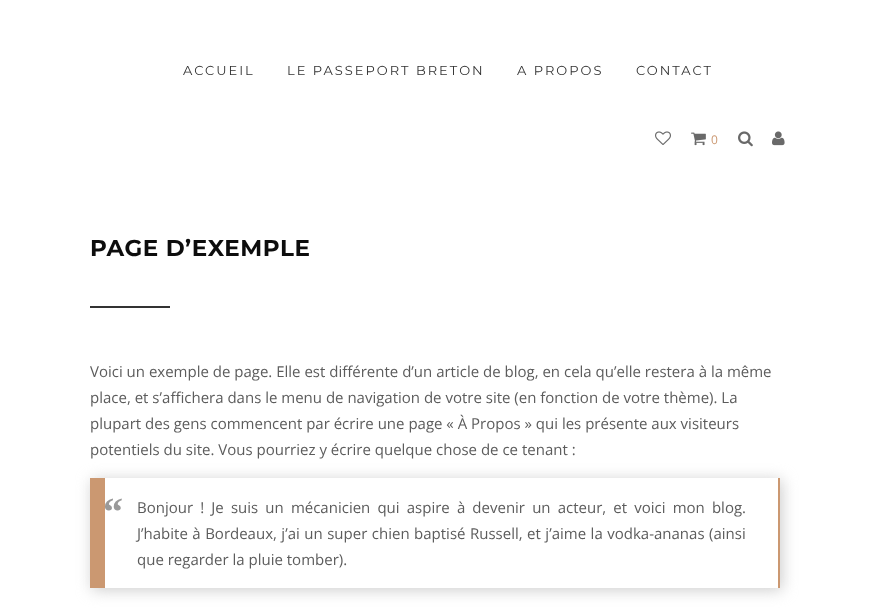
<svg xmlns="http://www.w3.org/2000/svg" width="870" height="610">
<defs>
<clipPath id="clip1"><path d="M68 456h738v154h-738zm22 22h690v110h-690z" clip-rule="evenodd"/></clipPath>
</defs>
<rect width="100%" height="100%" fill="#fff"/>
<text x="183" y="75" style="font-family:Montserrat;font-size:13px;letter-spacing:2px;fill:#333">ACCUEIL</text>
<text x="287" y="75" style="font-family:Montserrat;font-size:13px;letter-spacing:2px;fill:#333">LE PASSEPORT BRETON</text>
<text x="517" y="75" style="font-family:Montserrat;font-size:13px;letter-spacing:2px;fill:#333">A PROPOS</text>
<text x="636" y="75" style="font-family:Montserrat;font-size:13px;letter-spacing:2px;fill:#333">CONTACT</text>
<image x="655" y="131" width="16" height="14" href="media/1.png"/>
<image x="691" y="132" width="15" height="14" href="media/2.png"/>
<text x="711" y="144" style="font-family:Open Sans;font-size:12px;fill:#cb9871">0</text>
<image x="738" y="131" width="15" height="16" href="media/3.png"/>
<image x="772" y="131" width="13" height="15" href="media/4.png"/>
<text x="90" y="256" style="font-family:Montserrat;font-size:23px;font-weight:bold;letter-spacing:0.6px;fill:#0d0d0d">PAGE D’EXEMPLE</text>
<rect x="90" y="306" width="80" height="2" fill="#333"/>
<text x="90" y="377" style="font-family:Open Sans;font-size:15px;fill:#5c5c5c">Voici un exemple de page. Elle est différente d’un article de blog, en cela qu’elle restera à la même</text>
<text x="90" y="403" style="font-family:Open Sans;font-size:15px;fill:#5c5c5c">place, et s’affichera dans le menu de navigation de votre site (en fonction de votre thème). La</text>
<text x="90" y="429" style="font-family:Open Sans;font-size:15px;fill:#5c5c5c">plupart des gens commencent par écrire une page « À Propos » qui les présente aux visiteurs</text>
<text x="90" y="455" style="font-family:Open Sans;font-size:15px;fill:#5c5c5c">potentiels du site. Vous pourriez y écrire quelque chose de ce tenant :</text>
<g clip-path="url(#clip1)">
<rect x="92" y="480" width="690" height="110" fill="#ccc" filter="blur(7.5px)"/>
</g>
<rect x="778" y="478" width="2" height="110" fill="#cb9871"/>
<rect x="90" y="478" width="15" height="110" fill="#cb9871"/>
<text x="103" y="525" style="font-family:Liberation Serif;font-size:40px;font-weight:bold;fill:#999">“</text>
<text x="137" y="513" word-spacing="3.25" style="font-family:Open Sans;font-size:15px;fill:#5c5c5c">Bonjour ! Je suis un mécanicien qui aspire à devenir un acteur, et voici mon blog.</text>
<text x="137" y="539" word-spacing="0.6" style="font-family:Open Sans;font-size:15px;fill:#5c5c5c">J’habite à Bordeaux, j’ai un super chien baptisé Russell, et j’aime la vodka-ananas (ainsi</text>
<text x="137" y="565" style="font-family:Open Sans;font-size:15px;fill:#5c5c5c">que regarder la pluie tomber).</text>
</svg>
